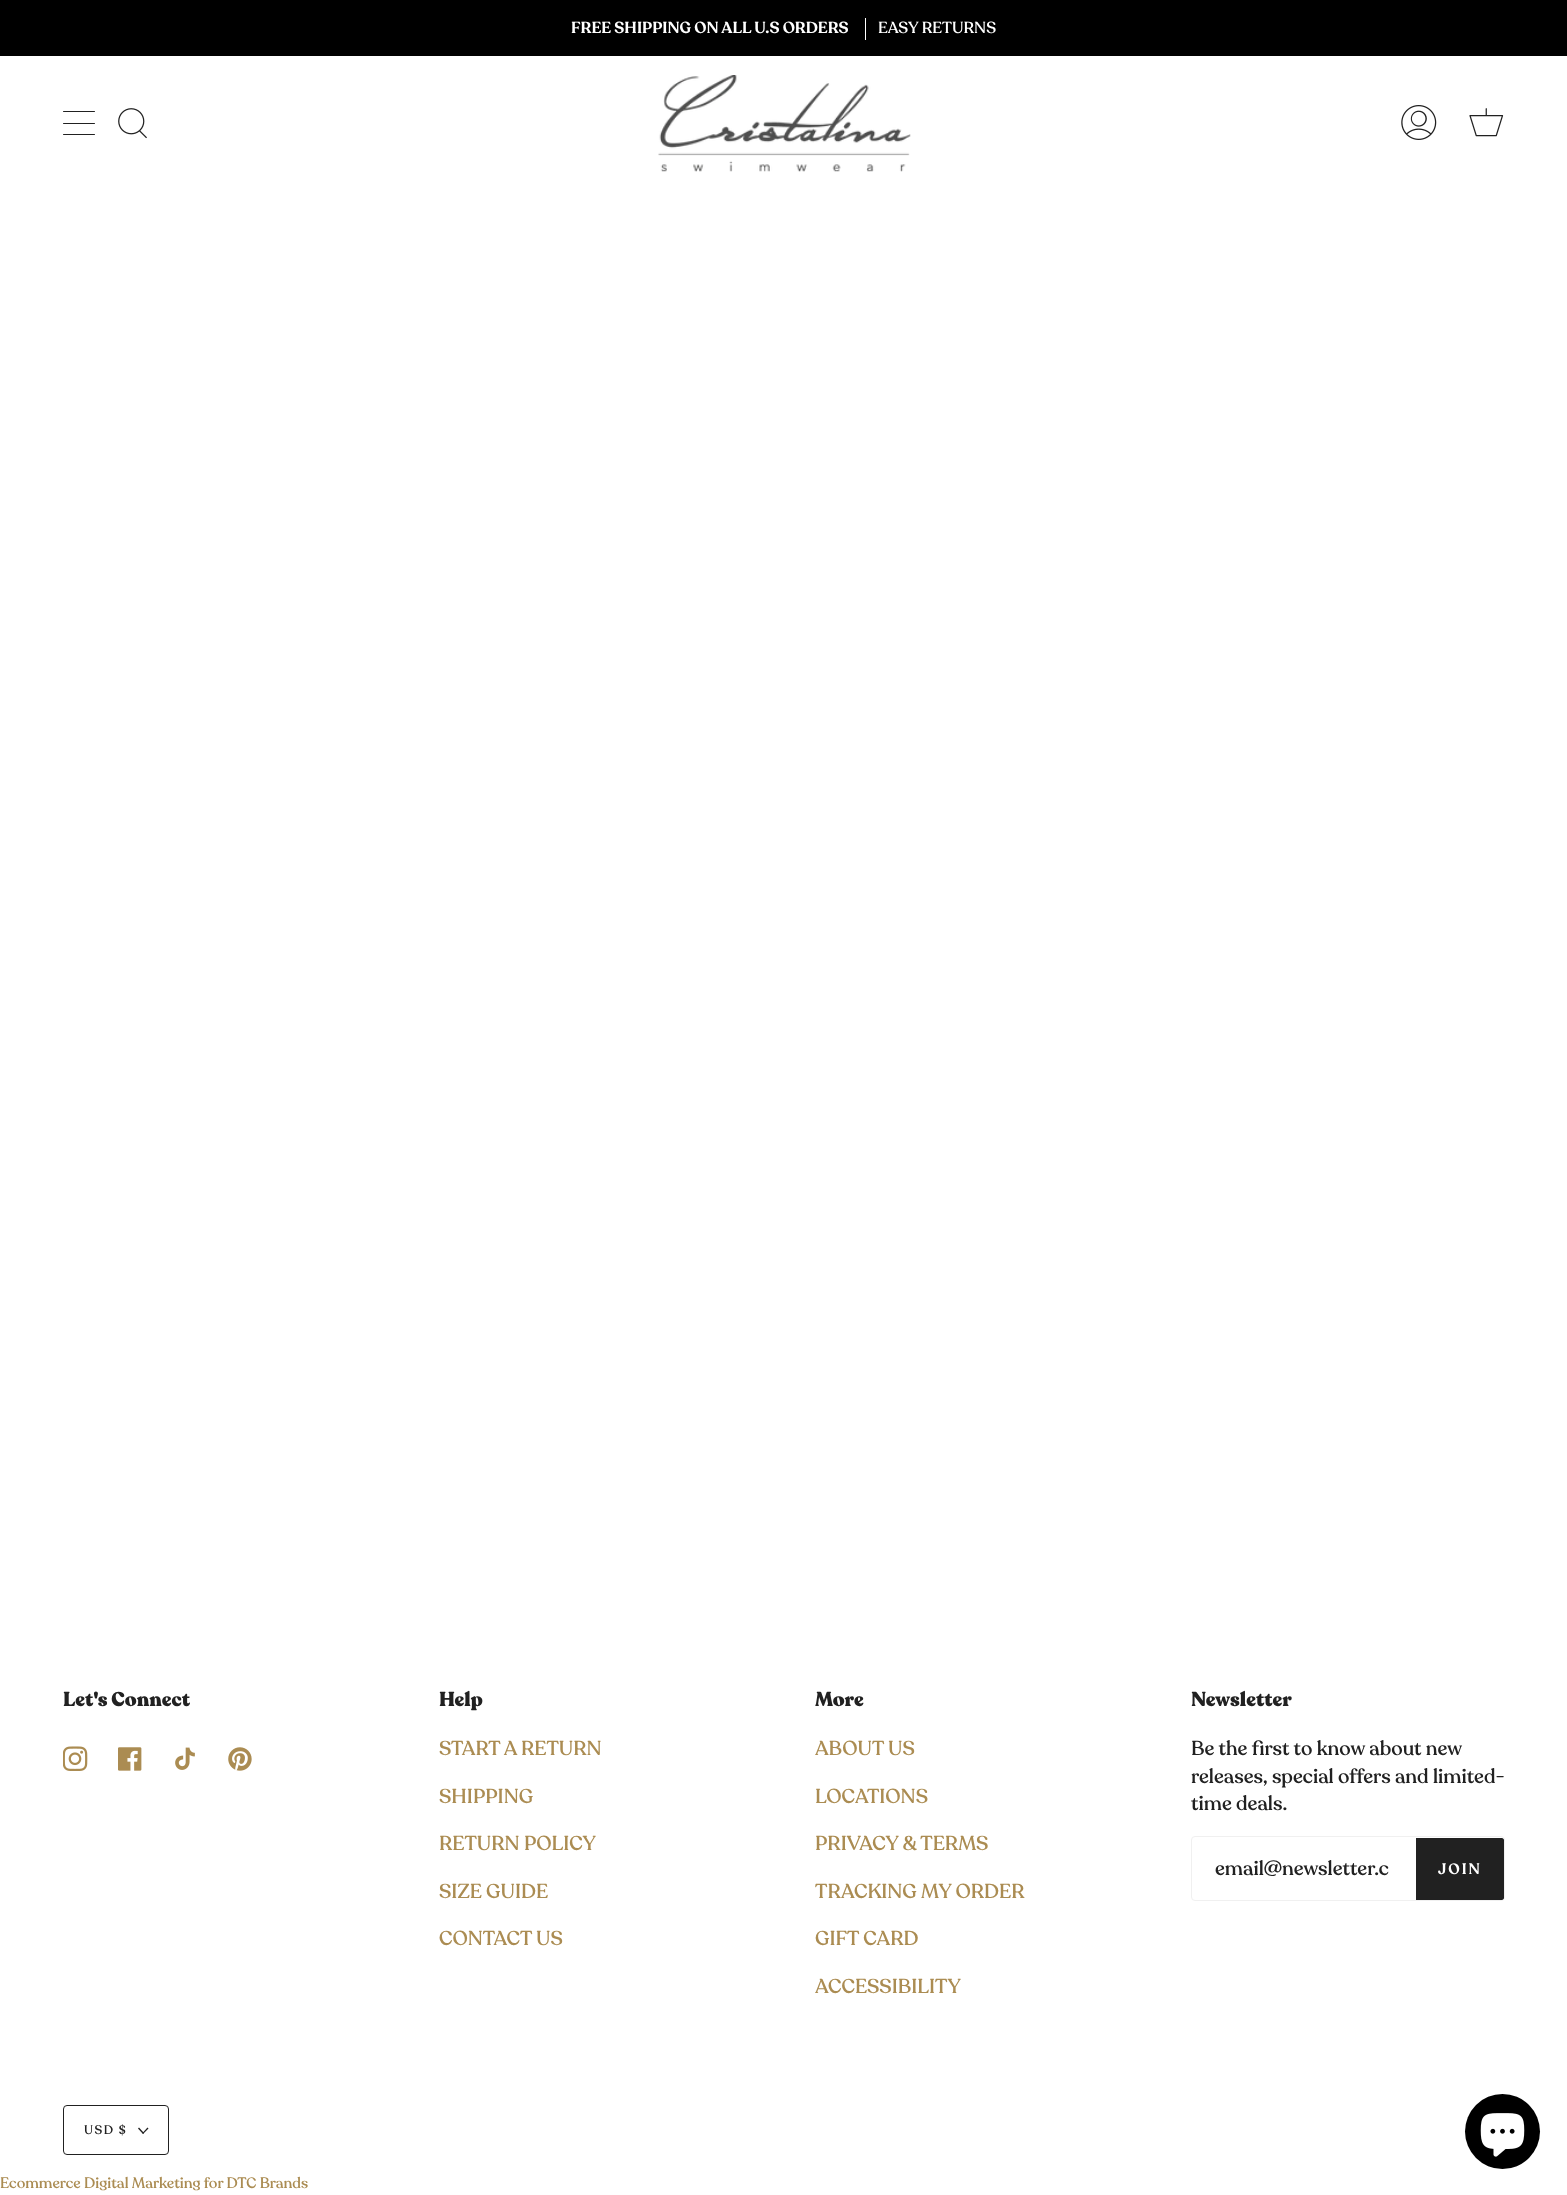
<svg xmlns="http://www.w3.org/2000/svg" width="1567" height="2195">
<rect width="100%" height="100%" fill="#fff"/>
<rect width="1567" height="56" fill="#000"/>
<text x="571" y="33" style="font-family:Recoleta;font-size:16px;font-weight:600;fill:#fff">FREE SHIPPING ON ALL U.S ORDERS</text>
<rect x="865" y="18" width="1" height="22" fill="#fff"/>
<text x="878" y="33" style="font-family:Recoleta;font-size:16px;font-weight:500;fill:#fff">EASY RETURNS</text>
<rect x="63" y="111" width="32" height="1" rx="0.5" fill="#212121"/>
<rect x="63" y="123" width="32" height="1" rx="0.5" fill="#212121"/>
<rect x="63" y="134" width="32" height="1" rx="0.5" fill="#212121"/>
<image x="118" y="108" width="29" height="31" href="media/1.png"/>
<image x="658" y="75" width="253" height="97" href="media/2.png"/>
<image x="1401" y="105" width="36" height="35" href="media/3.png"/>
<image x="1469" y="108" width="35" height="29" href="media/4.png"/>
<text x="63" y="1706" style="font-family:Recoleta;font-size:20px;font-weight:900;fill:#212121">Let's Connect</text>
<image x="63" y="1746" width="25" height="25" href="media/5.png"/>
<image x="118" y="1747" width="24" height="24" href="media/6.png"/>
<image x="175" y="1747" width="20" height="23" href="media/7.png"/>
<image x="228" y="1747" width="24" height="24" href="media/8.png"/>
<text x="439" y="1706" style="font-family:Recoleta;font-size:20px;font-weight:900;fill:#212121">Help</text>
<text x="439" y="1755" style="font-family:Recoleta;font-size:20px;font-weight:500;fill:#ab8c52">START A RETURN</text>
<text x="439" y="1803" style="font-family:Recoleta;font-size:20px;font-weight:500;fill:#ab8c52">SHIPPING</text>
<text x="439" y="1850" style="font-family:Recoleta;font-size:20px;font-weight:500;fill:#ab8c52">RETURN POLICY</text>
<text x="439" y="1898" style="font-family:Recoleta;font-size:20px;font-weight:500;fill:#ab8c52">SIZE GUIDE</text>
<text x="439" y="1945" style="font-family:Recoleta;font-size:20px;font-weight:500;fill:#ab8c52">CONTACT US</text>
<text x="815" y="1706" style="font-family:Recoleta;font-size:20px;font-weight:900;fill:#212121">More</text>
<text x="815" y="1755" style="font-family:Recoleta;font-size:20px;font-weight:500;fill:#ab8c52">ABOUT US</text>
<text x="815" y="1803" style="font-family:Recoleta;font-size:20px;font-weight:500;fill:#ab8c52">LOCATIONS</text>
<text x="815" y="1850" style="font-family:Recoleta;font-size:20px;font-weight:500;fill:#ab8c52">PRIVACY &amp; TERMS</text>
<text x="815" y="1898" style="font-family:Recoleta;font-size:20px;font-weight:500;fill:#ab8c52">TRACKING MY ORDER</text>
<text x="815" y="1945" style="font-family:Recoleta;font-size:20px;font-weight:500;fill:#ab8c52">GIFT CARD</text>
<text x="815" y="1993" style="font-family:Recoleta;font-size:20px;font-weight:500;fill:#ab8c52">ACCESSIBILITY</text>
<text x="1191" y="1706" style="font-family:Recoleta;font-size:20px;font-weight:900;fill:#212121">Newsletter</text>
<text x="1191" y="1755" style="font-family:Recoleta;font-size:20px;font-weight:500;fill:#212121">Be the first to know about new</text>
<text x="1191" y="1783" style="font-family:Recoleta;font-size:20px;font-weight:500;fill:#212121">releases, special offers and limited-</text>
<text x="1191" y="1810" style="font-family:Recoleta;font-size:20px;font-weight:500;fill:#212121">time deals.</text>
<rect x="1191.5" y="1836.5" width="313" height="64" rx="3.5" fill="none" stroke="#f0f0f0"/>
<text x="1215" y="1875" style="font-family:Recoleta;font-size:20px;font-weight:500;fill:#212121">email@newsletter.c</text>
<path d="M1416 1838h85.5c1.5 0 2.5 1 2.5 2.5v57c0 1.5-1 2.5-2.5 2.5h-85.5z" fill="#212121"/>
<rect x="1416" y="1838" width="88" height="62" rx="4" fill="#212121"/>
<text x="1438" y="1874" style="font-family:Recoleta;font-size:15px;font-weight:600;letter-spacing:2px;fill:#fff">JOIN</text>
<rect x="63.5" y="2105.5" width="105" height="49" rx="3.5" fill="none" stroke="#212121"/>
<text x="84" y="2134" style="font-family:Recoleta;font-size:12.5px;font-weight:500;letter-spacing:1.5px;fill:#212121">USD $</text>
<path d="M142.5 2133l5-5.5l1 1l-5.5 5.5z" fill="#212121"/>
<path d="M138 2128.5l1-1l5 5.5l-1 1z" fill="#212121"/>
<text x="0" y="2188" style="font-family:Recoleta;font-size:15px;font-weight:500;fill:#ab8c52">Ecommerce Digital Marketing for DTC Brands</text>
<circle cx="1502.5" cy="2131.5" r="37.5" fill="#000"/>
<image x="1480" y="2113" width="45" height="44" href="media/9.png"/>
</svg>
